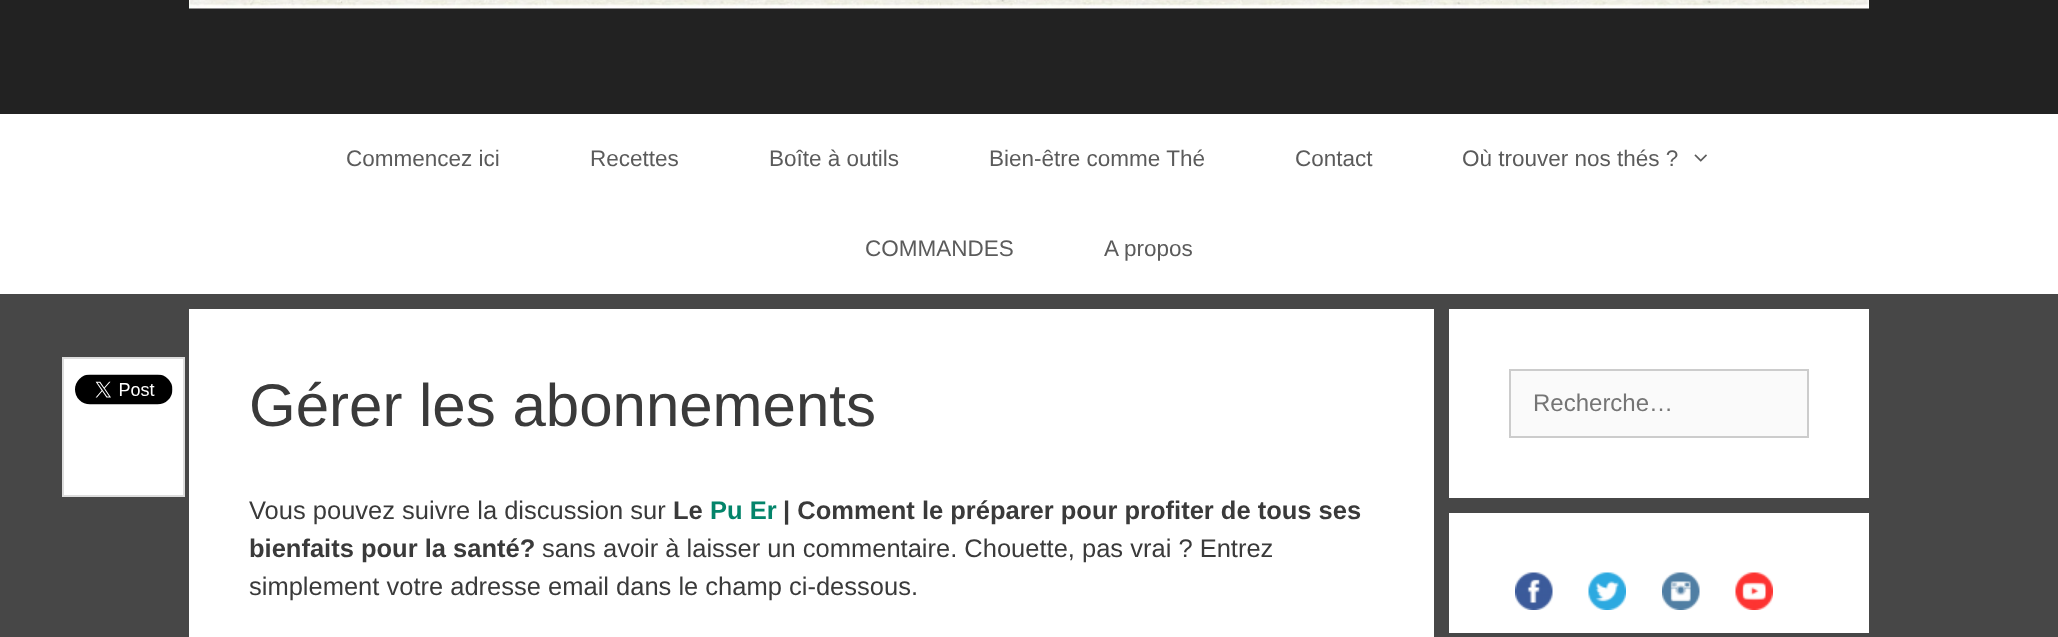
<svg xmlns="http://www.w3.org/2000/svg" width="2058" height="637">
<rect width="100%" height="100%" fill="#474747"/>
<rect width="2058" height="114" fill="#222"/>
<image x="189" y="0" width="1680" height="9" href="media/1.png"/>
<rect y="114" width="2058" height="180" fill="#fff"/>
<text x="346" y="166" style="font-family:Liberation Sans;font-size:22.5px;fill:#5b5b5b">Commencez ici</text>
<text x="590" y="166" style="font-family:Liberation Sans;font-size:22.5px;fill:#5b5b5b">Recettes</text>
<text x="769" y="166" style="font-family:Liberation Sans;font-size:22.5px;fill:#5b5b5b">Boîte à outils</text>
<text x="989" y="166" style="font-family:Liberation Sans;font-size:22.5px;fill:#5b5b5b">Bien-être comme Thé</text>
<text x="1295" y="166" style="font-family:Liberation Sans;font-size:22.5px;fill:#5b5b5b">Contact</text>
<text x="1462" y="166" style="font-family:Liberation Sans;font-size:22.5px;fill:#5b5b5b">Où trouver nos thés ?</text>
<image x="1694" y="154" width="13" height="8" href="media/2.png"/>
<text x="865" y="256" style="font-family:Liberation Sans;font-size:22.5px;fill:#5b5b5b">COMMANDES</text>
<text x="1104" y="256" style="font-family:Liberation Sans;font-size:22.5px;fill:#5b5b5b">A propos</text>
<rect x="63" y="358" width="121" height="138" fill="#fff" stroke="#ddd" stroke-width="2"/>
<image x="75" y="374" width="98" height="31" href="media/3.png"/>
<rect x="189" y="309" width="1245" height="328" fill="#fff"/>
<text x="249" y="426" style="font-family:Liberation Sans;font-size:60px;fill:#3a3a3a">Gérer les abonnements</text>
<text x="249" y="519" style="font-family:Liberation Sans;font-size:25.5px;fill:#3a3a3a">Vous pouvez suivre la discussion sur</text>
<text x="673" y="519" style="font-family:Liberation Sans;font-size:25.5px;font-weight:bold;fill:#3a3a3a">Le</text>
<text x="710" y="519" style="font-family:Liberation Sans;font-size:25.5px;font-weight:bold;fill:#03846a">Pu Er</text>
<text x="783" y="519" style="font-family:Liberation Sans;font-size:25.5px;font-weight:bold;fill:#3a3a3a">| Comment le préparer pour profiter de tous ses</text>
<text x="249" y="557" style="font-family:Liberation Sans;font-size:25.5px;font-weight:bold;fill:#3a3a3a">bienfaits pour la santé?</text>
<text x="542" y="557" style="font-family:Liberation Sans;font-size:25.5px;fill:#3a3a3a">sans avoir à laisser un commentaire. Chouette, pas vrai ? Entrez</text>
<text x="249" y="595" style="font-family:Liberation Sans;font-size:25.5px;fill:#3a3a3a">simplement votre adresse email dans le champ ci-dessous.</text>
<rect x="1449" y="309" width="420" height="189" fill="#fff"/>
<rect x="1510" y="370" width="298" height="67" fill="#fafafa" stroke="#ccc" stroke-width="2"/>
<text x="1533" y="411" style="font-family:Liberation Sans;font-size:24px;fill:#757575">Recherche…</text>
<rect x="1449" y="513" width="420" height="120" fill="#fff"/>
<image x="1515" y="572" width="38" height="38" href="media/4.png"/>
<image x="1588" y="572" width="38" height="38" href="media/5.png"/>
<image x="1662" y="572" width="38" height="38" href="media/6.png"/>
<image x="1735" y="572" width="38" height="38" href="media/7.png"/>
</svg>
